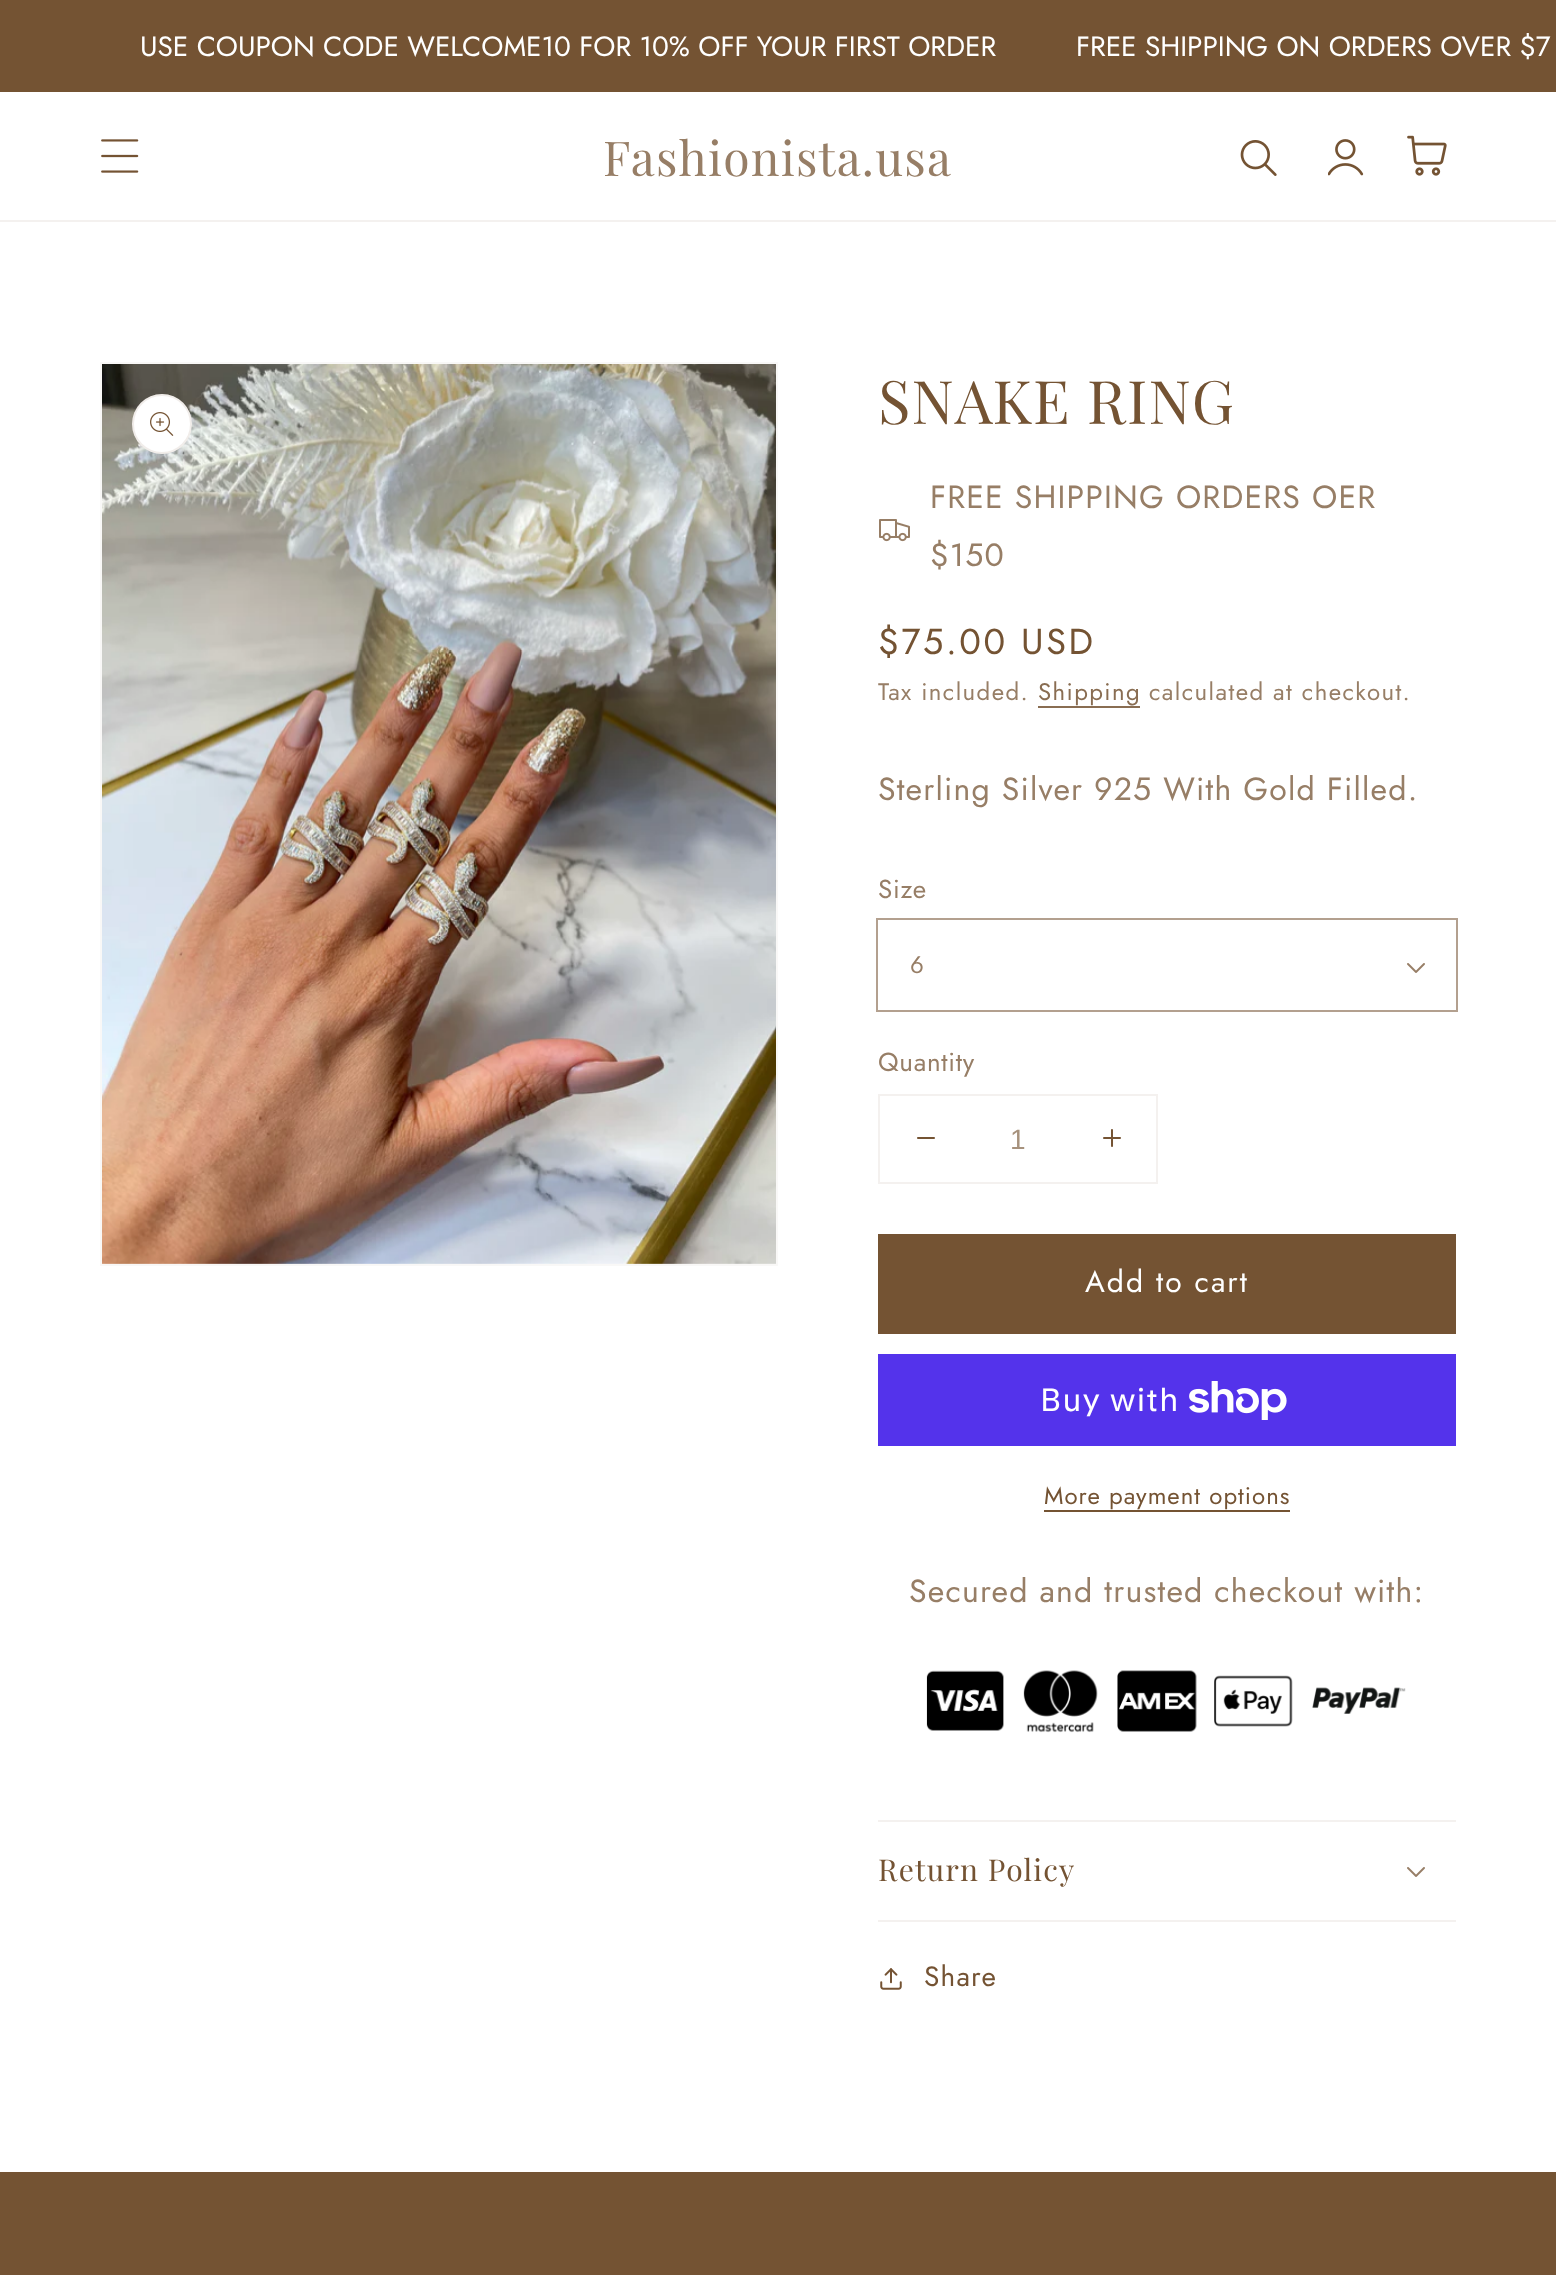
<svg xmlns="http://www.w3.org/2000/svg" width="1556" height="2275">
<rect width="100%" height="100%" fill="#fff"/>
<rect width="1556" height="92" fill="#745333"/>
<text x="140" y="56" style="font-family:Jost;font-size:28px;fill:#fff">USE COUPON CODE WELCOME10 FOR 10% OFF YOUR FIRST ORDER</text>
<text x="1076" y="56" style="font-family:Jost;font-size:28px;fill:#fff">FREE SHIPPING ON ORDERS OVER $7</text>
<rect y="220" width="1556" height="2" fill="#f4f1ef"/>
<image x="101" y="139" width="38" height="34" href="media/1.png"/>
<text x="603" y="176" style="font-family:Playfair Display;font-size:48px;letter-spacing:1.2px;fill:#977e66">Fashionista.usa</text>
<image x="1240" y="140" width="37" height="36" href="media/2.png"/>
<image x="1328" y="139" width="36" height="37" href="media/3.png"/>
<image x="1407" y="135" width="40" height="41" href="media/4.png"/>
<rect x="101" y="363" width="676" height="902" fill="none" stroke="#f9f8f7" stroke-width="2"/>
<image x="102" y="364" width="674" height="900" href="media/5.png"/>
<circle cx="162" cy="424" r="30" fill="#fff"/>
<circle cx="162" cy="424" r="29" fill="none" stroke="#7453331a" stroke-width="2"/>
<image x="150" y="412" width="24" height="24" href="media/6.png"/>
<text x="878" y="424" style="font-family:Playfair Display;font-size:60px;letter-spacing:1.2px;fill:#745333">SNAKE RING</text>
<image x="879" y="519" width="31" height="23" href="media/7.png"/>
<text x="930" y="508" style="font-family:Jost;font-size:32px;letter-spacing:1.2px;fill:#977e66">FREE SHIPPING ORDERS OER</text>
<text x="930" y="566" style="font-family:Jost;font-size:32px;letter-spacing:1.2px;fill:#977e66">$150</text>
<text x="878" y="654" style="font-family:Jost;font-size:36px;letter-spacing:2.6px;fill:#745333">$75.00 USD</text>
<text x="878" y="700" style="font-family:Jost;font-size:24px;letter-spacing:1.4px;fill:#977e66">Tax included.</text>
<text x="1038" y="700" style="font-family:Jost;font-size:24px;letter-spacing:1.4px;fill:#896d52">Shipping</text>
<rect x="1038" y="706" width="102" height="2" fill="#896d52"/>
<text x="1149" y="700" style="font-family:Jost;font-size:24px;letter-spacing:1.4px;fill:#977e66">calculated at checkout.</text>
<text x="878" y="800" style="font-family:Jost;font-size:32px;letter-spacing:1.2px;fill:#977e66">Sterling Silver 925 With Gold Filled.</text>
<text x="878" y="898" style="font-family:Jost;font-size:26px;letter-spacing:0.75px;fill:#977e66">Size</text>
<rect x="877" y="919" width="580" height="92" fill="none" stroke="#b3a08f" stroke-width="2"/>
<text x="910" y="973" style="font-family:Jost;font-size:24px;letter-spacing:0.75px;fill:#977e66">6</text>
<image x="1407" y="963" width="18" height="10" href="media/8.png"/>
<text x="878" y="1071" style="font-family:Jost;font-size:26px;letter-spacing:0.75px;fill:#977e66">Quantity</text>
<rect x="879" y="1095" width="278" height="88" fill="none" stroke="#f4f1ef" stroke-width="2"/>
<image x="917" y="1137" width="18" height="2" href="media/9.png"/>
<text x="1010" y="1149" style="font-family:Liberation Sans;font-size:28px;fill:#a7927d">1</text>
<image x="1103" y="1129" width="18" height="18" href="media/10.png"/>
<rect x="878" y="1234" width="578" height="100" fill="#745333"/>
<text x="1085" y="1292" style="font-family:Jost;font-size:30px;letter-spacing:2px;fill:#fff">Add to cart</text>
<rect x="878" y="1354" width="578" height="92" fill="#5433eb"/>
<text x="1040" y="1411" style="font-family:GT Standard;font-size:32px;letter-spacing:1.2px;fill:#fff">Buy with</text>
<image x="1189" y="1381" width="98" height="39" href="media/11.png"/>
<text x="1044" y="1504" style="font-family:Jost;font-size:24px;letter-spacing:1px;fill:#745333">More payment options</text>
<rect x="1044" y="1510" width="246" height="2" fill="#745333"/>
<text x="909" y="1602" style="font-family:Jost;font-size:32px;letter-spacing:1.2px;fill:#977e66">Secured and trusted checkout with:</text>
<image x="926" y="1670" width="480" height="63" href="media/12.png"/>
<rect x="878" y="1820" width="578" height="2" fill="#f4f1ef"/>
<rect x="878" y="1920" width="578" height="2" fill="#f4f1ef"/>
<text x="878" y="1881" style="font-family:Playfair Display;font-size:30px;letter-spacing:1.2px;fill:#745333">Return Policy</text>
<image x="1407" y="1867" width="18" height="10" href="media/8.png"/>
<image x="880" y="1968" width="22" height="22" href="media/13.png"/>
<text x="924" y="1986" style="font-family:Jost;font-size:28px;letter-spacing:1.2px;fill:#745333">Share</text>
<rect y="2172" width="1556" height="103" fill="#745333"/>
</svg>
